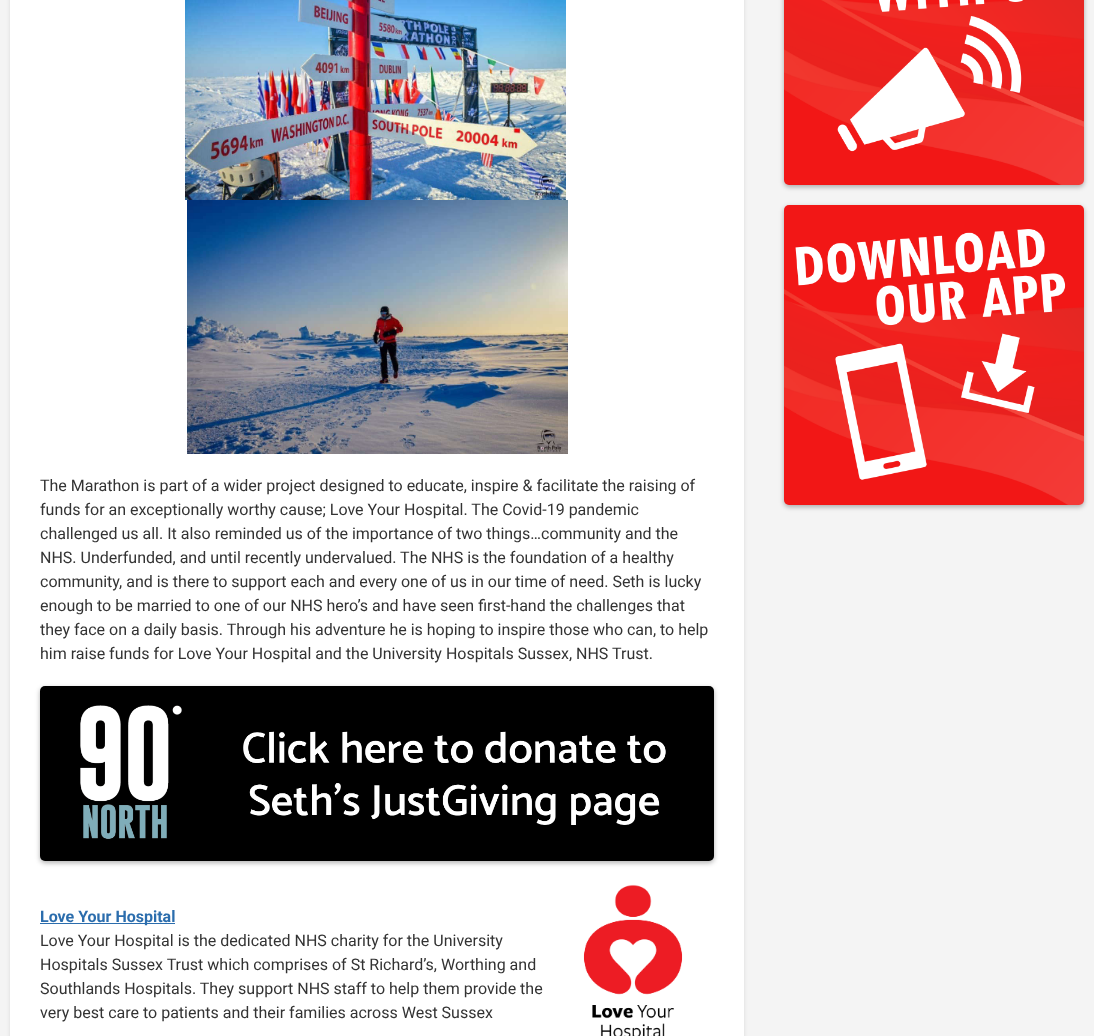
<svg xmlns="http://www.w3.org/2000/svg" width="1094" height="1036">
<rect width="100%" height="100%" fill="#f4f4f4"/>
<rect x="784" y="-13" width="300" height="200" rx="5" fill="#0000004d" filter="blur(2.5px)"/>
<image x="784" y="0" width="300" height="185" href="media/1.png"/>
<rect x="784" y="207" width="300" height="300" rx="5" fill="#0000004d" filter="blur(2.5px)"/>
<image x="784" y="205" width="300" height="300" href="media/2.png"/>
<rect x="10" y="-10" width="734" height="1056" rx="4" fill="#0000001a" filter="blur(2px)"/>
<rect x="10" width="734" height="1036" fill="#fff"/>
<image x="185" y="0" width="381" height="200" href="media/3.png"/>
<image x="187" y="200" width="381" height="254" href="media/4.png"/>
<text x="40" y="491" style="font-family:Roboto;font-size:16px;fill:#333">The Marathon is part of a wider project designed to educate, inspire &amp; facilitate the raising of</text>
<text x="40" y="515" style="font-family:Roboto;font-size:16px;fill:#333">funds for an exceptionally worthy cause; Love Your Hospital. The Covid-19 pandemic</text>
<text x="40" y="539" style="font-family:Roboto;font-size:16px;fill:#333">challenged us all. It also reminded us of the importance of two things…community and the</text>
<text x="40" y="563" style="font-family:Roboto;font-size:16px;fill:#333">NHS. Underfunded, and until recently undervalued. The NHS is the foundation of a healthy</text>
<text x="40" y="587" style="font-family:Roboto;font-size:16px;fill:#333">community, and is there to support each and every one of us in our time of need. Seth is lucky</text>
<text x="40" y="611" style="font-family:Roboto;font-size:16px;fill:#333">enough to be married to one of our NHS hero’s and have seen first-hand the challenges that</text>
<text x="40" y="635" style="font-family:Roboto;font-size:16px;fill:#333">they face on a daily basis. Through his adventure he is hoping to inspire those who can, to help</text>
<text x="40" y="659" style="font-family:Roboto;font-size:16px;fill:#333">him raise funds for Love Your Hospital and the University Hospitals Sussex, NHS Trust.</text>
<rect x="40" y="688" width="674" height="175" rx="5" fill="#0000004d" filter="blur(2.5px)"/>
<image x="40" y="686" width="674" height="175" href="media/5.png"/>
<rect x="40" y="923" width="135" height="1" fill="#2b6dad"/>
<text x="40" y="922" style="font-family:Roboto;font-size:16px;font-weight:bold;fill:#2b6dad">Love Your Hospital</text>
<image x="583" y="884" width="100" height="152" href="media/6.png"/>
<text x="40" y="946" style="font-family:Roboto;font-size:16px;fill:#333">Love Your Hospital is the dedicated NHS charity for the University</text>
<text x="40" y="970" style="font-family:Roboto;font-size:16px;fill:#333">Hospitals Sussex Trust which comprises of St Richard’s, Worthing and</text>
<text x="40" y="994" style="font-family:Roboto;font-size:16px;fill:#333">Southlands Hospitals. They support NHS staff to help them provide the</text>
<text x="40" y="1018" style="font-family:Roboto;font-size:16px;fill:#333">very best care to patients and their families across West Sussex</text>
</svg>
